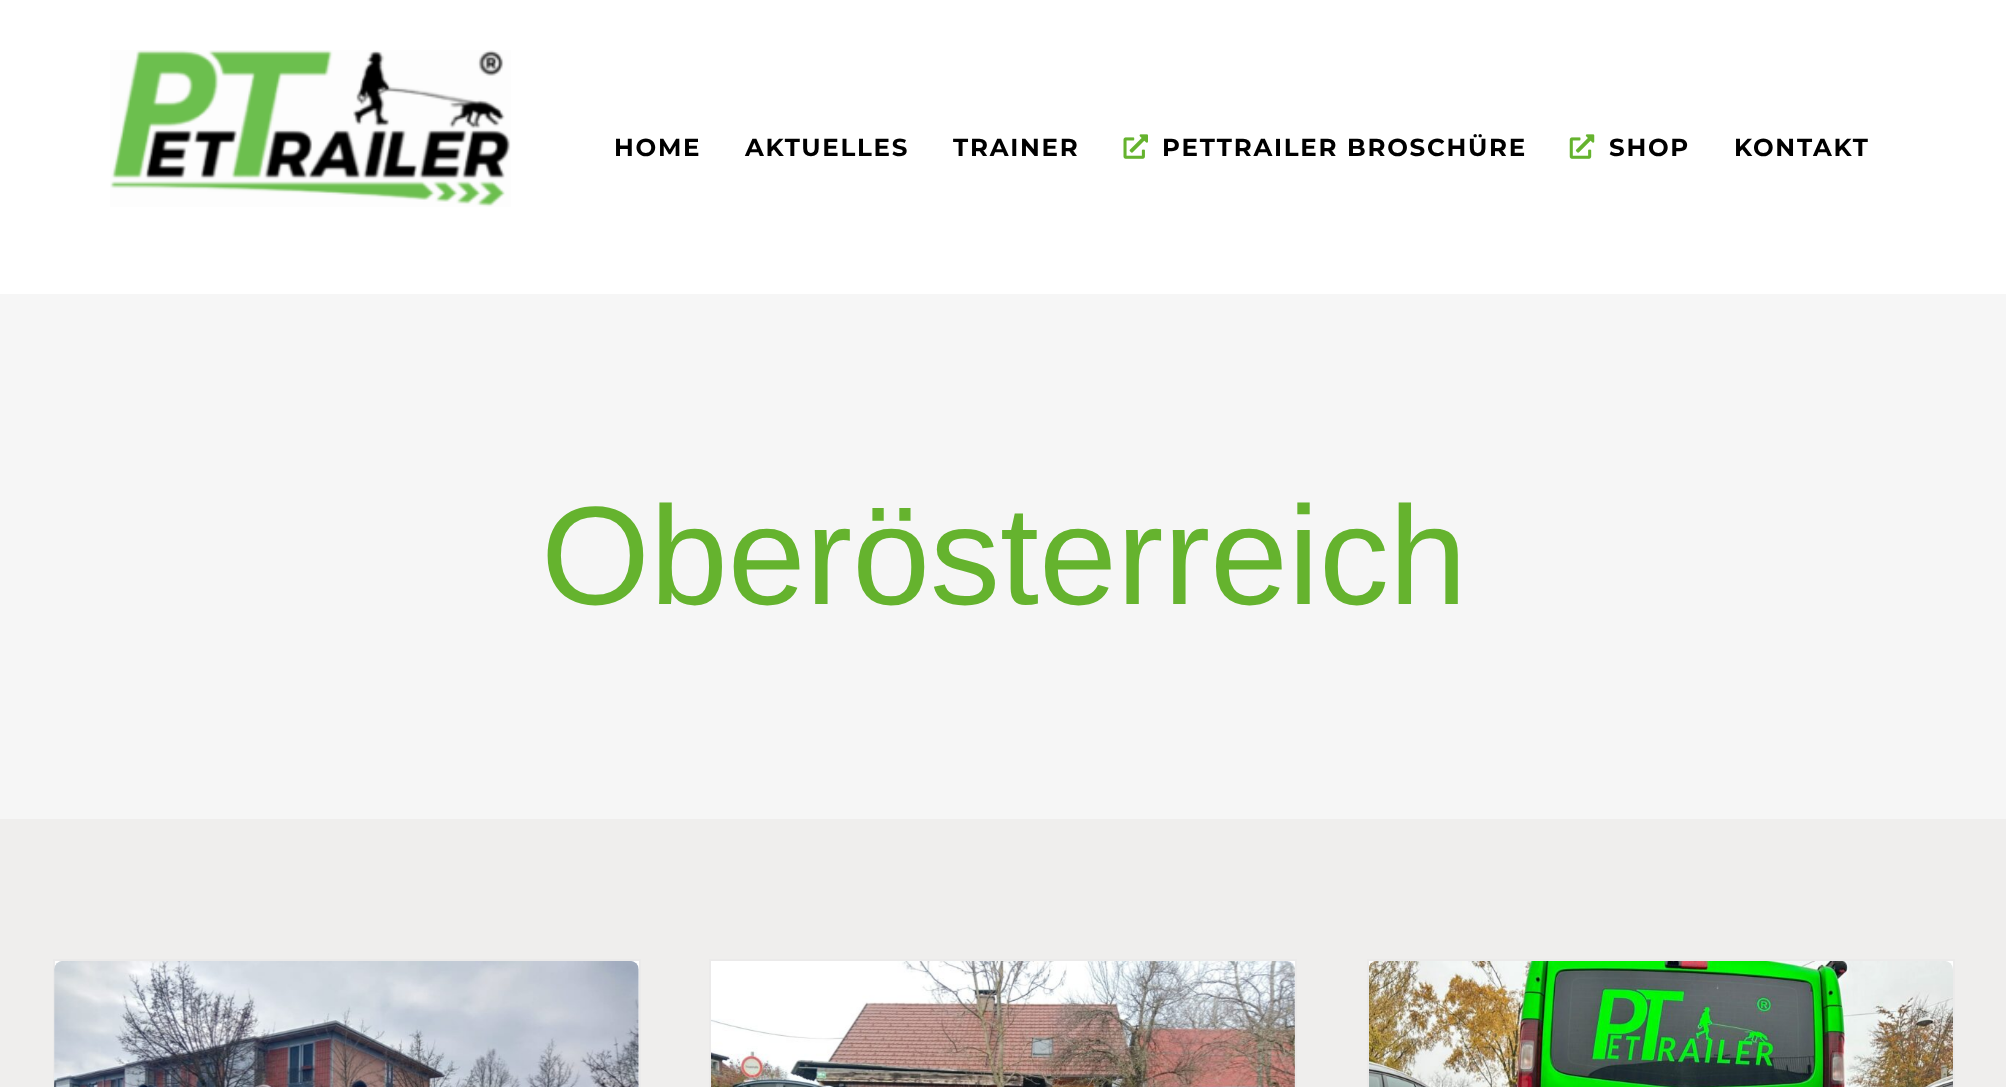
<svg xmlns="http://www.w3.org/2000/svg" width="2006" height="1087">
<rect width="100%" height="100%" fill="#efeeed"/>
<rect width="2006" height="294" fill="#fff"/>
<image x="110" y="50" width="401" height="157" href="media/1.png"/>
<text x="614" y="156" style="font-family:Montserrat;font-size:24.5px;font-weight:bold;letter-spacing:1.75px;fill:#000">HOME</text>
<text x="745" y="156" style="font-family:Montserrat;font-size:24.5px;font-weight:bold;letter-spacing:1.75px;fill:#000">AKTUELLES</text>
<text x="953" y="156" style="font-family:Montserrat;font-size:24.5px;font-weight:bold;letter-spacing:1.75px;fill:#000">TRAINER</text>
<image x="1123" y="134" width="25" height="25" href="media/2.png"/>
<text x="1162" y="156" style="font-family:Montserrat;font-size:24.5px;font-weight:bold;letter-spacing:1.75px;fill:#000">PETTRAILER BROSCHÜRE</text>
<image x="1569" y="134" width="26" height="25" href="media/3.png"/>
<text x="1609" y="156" style="font-family:Montserrat;font-size:24.5px;font-weight:bold;letter-spacing:1.75px;fill:#000">SHOP</text>
<text x="1734" y="156" style="font-family:Montserrat;font-size:24.5px;font-weight:bold;letter-spacing:1.75px;fill:#000">KONTAKT</text>
<rect y="294" width="2006" height="525" fill="#f6f6f6"/>
<text x="541" y="604" style="font-family:Liberation Sans;font-size:140px;fill:#65b32e">Oberösterreich</text>
<rect x="55" y="961" width="584" height="126" fill="#fff"/>
<rect x="53" y="959" width="588" height="2" fill="#ebeaea"/>
<rect x="639" y="959" width="2" height="128" fill="#ebeaea"/>
<rect x="53" y="959" width="2" height="128" fill="#ebeaea"/>
<image x="54" y="961" width="585" height="126" href="media/4.png"/>
<rect x="711" y="961" width="584" height="126" fill="#fff"/>
<rect x="709" y="959" width="588" height="2" fill="#ebeaea"/>
<rect x="1295" y="959" width="2" height="128" fill="#ebeaea"/>
<rect x="709" y="959" width="2" height="128" fill="#ebeaea"/>
<image x="711" y="961" width="584" height="126" href="media/5.png"/>
<rect x="1369" y="961" width="584" height="9" fill="#fff"/>
<rect x="1367" y="959" width="588" height="2" fill="#ebeaea"/>
<rect x="1953" y="959" width="2" height="128" fill="#ebeaea"/>
<rect x="1367" y="959" width="2" height="128" fill="#ebeaea"/>
<image x="1369" y="961" width="584" height="126" href="media/6.png"/>
</svg>
